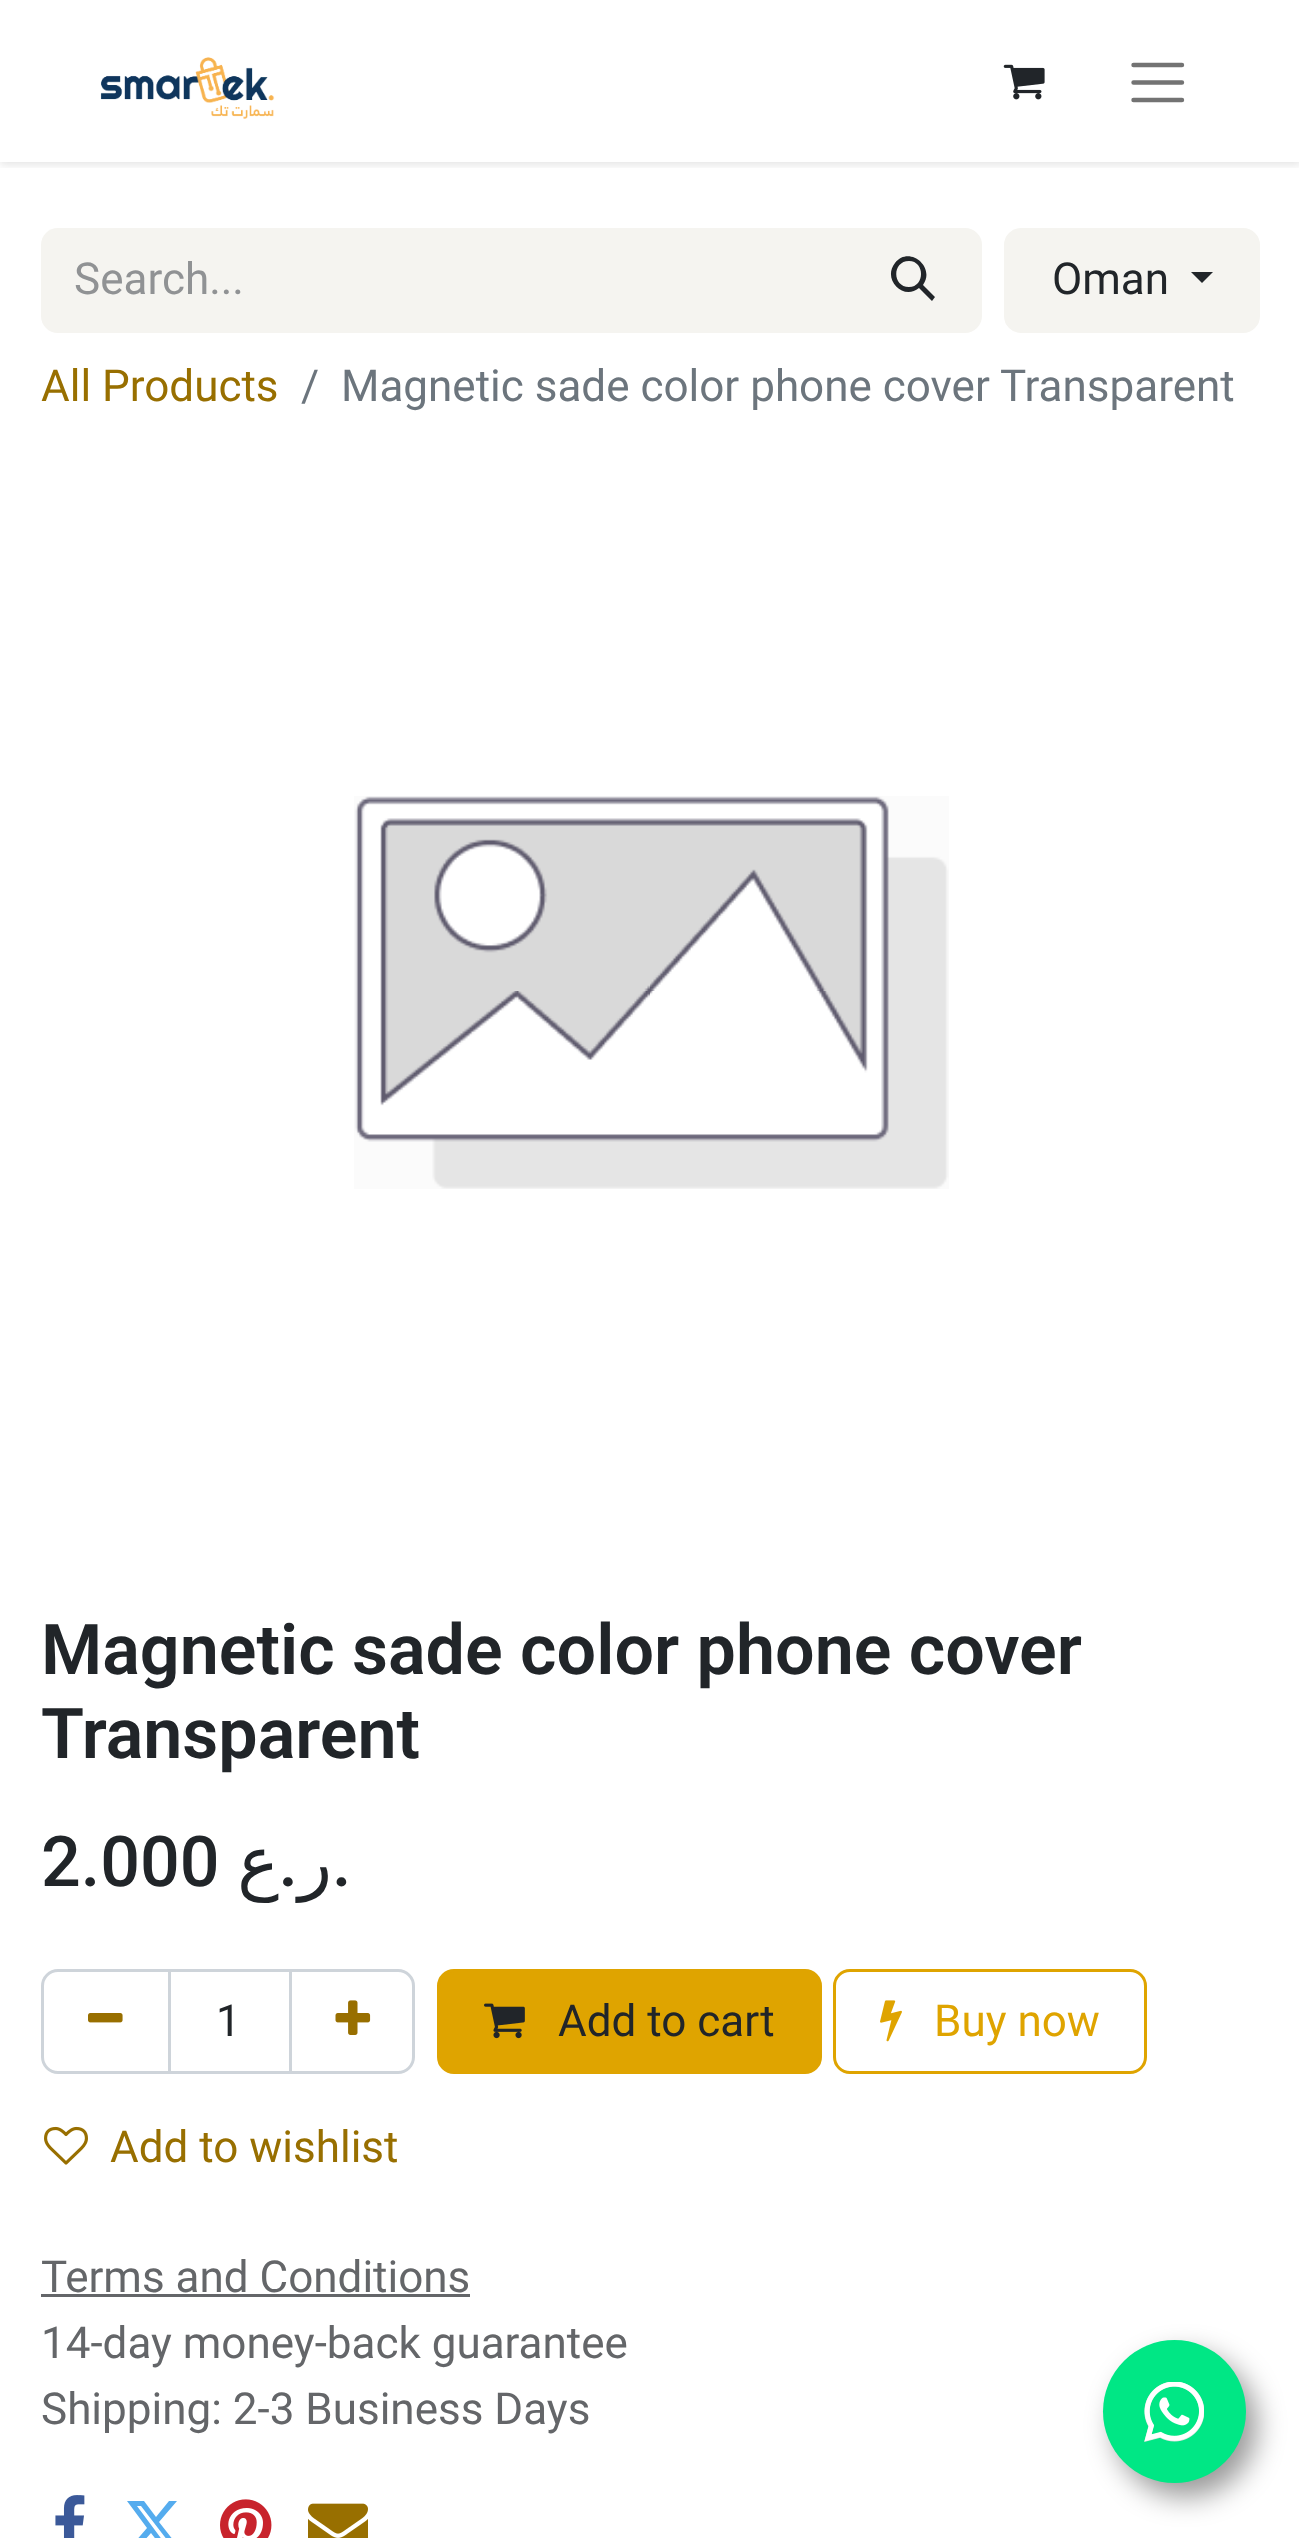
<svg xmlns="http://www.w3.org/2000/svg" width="1299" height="2538">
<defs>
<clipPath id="clip1"><rect x="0" y="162" width="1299" height="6"/></clipPath>
</defs>
<rect width="100%" height="100%" fill="#fff"/>
<g clip-path="url(#clip1)">
<rect y="3" width="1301" height="162" fill="#0000001a" filter="blur(4px)"/>
</g>
<image x="100" y="57" width="175" height="62" href="media/1.png"/>
<image x="1003" y="64" width="42" height="36" href="media/2.png"/>
<path d="M1133.5 65h48.5m-48.5 17.5h48.5m-48.5 17.5h48.5" fill="none" stroke="#737373" stroke-width="4.4" stroke-linecap="round"/>
<path d="M58 228h789v105h-789c-9.5 0-17-7.5-17-17v-71c0-9.5 7.5-17 17-17z" fill="#f5f4f0"/>
<text x="74" y="294" style="font-family:Roboto;font-size:44px;fill:#909294">Search...</text>
<path d="M845.5 229.5h119.5c8.5 0 15.5 7 15.5 15.5v71c0 8.5-7 15.5-15.5 15.5h-119.5z" fill="#f5f4f0" stroke="#f5f4f0" stroke-width="3"/>
<path d="M895 263c14-18 41 4 28 22l12 12l-3 4l-13-13c-16 13-37-9-24-25zm14-2c-17 0-17 26 0 26c16 0 16-26 0-26z" fill="#212529"/>
<rect x="1005.5" y="229.5" width="253" height="102" rx="15.5" fill="#f5f4f0" stroke="#f5f4f0" stroke-width="3"/>
<text x="1052" y="294" style="font-family:Roboto;font-size:44px;fill:#212529">Oman</text>
<path d="M1191 272h22l-11 11z" fill="#212529"/>
<text x="41" y="401" style="font-family:Roboto;font-size:44px;fill:#986f00">All Products</text>
<text x="301" y="401" style="font-family:Roboto;font-size:44px;fill:#6c757d">/</text>
<text x="341" y="401" style="font-family:Roboto;font-size:44px;fill:#6c757d">Magnetic sade color phone cover Transparent</text>
<image x="354" y="796" width="595" height="393" href="media/3.png"/>
<text x="41" y="1674" style="font-family:Roboto;font-size:70px;font-weight:600;fill:#212529">Magnetic sade color phone cover</text>
<text x="41" y="1758" style="font-family:Roboto;font-size:70px;font-weight:600;fill:#212529">Transparent</text>
<text x="41" y="1886" style="font-family:Roboto;font-size:70px;font-weight:500;fill:#212529">2.000</text>
<text x="279" y="1886" style="font-family:DejaVu Sans;font-size:70px;direction:rtl;fill:#212529">ع</text>
<text x="298" y="1886" style="font-family:Roboto;font-size:70px;font-weight:500;direction:rtl;fill:#212529">.</text>
<text x="332" y="1886" style="font-family:DejaVu Sans;font-size:70px;direction:rtl;fill:#212529">ر</text>
<text x="332" y="1886" style="font-family:Roboto;font-size:70px;font-weight:500;fill:#212529">.</text>
<rect x="169.5" y="1970.5" width="121" height="102" fill="none" stroke="#ced4da" stroke-width="3"/>
<path d="M58 1970.5h111.5v102h-111.5c-8.5 0-15.5-7-15.5-15.5v-71c0-8.5 7-15.5 15.5-15.5z" fill="none" stroke="#ced4da" stroke-width="3"/>
<image x="88" y="2013" width="35" height="10" href="media/4.png"/>
<text x="216" y="2036" style="font-family:Roboto;font-size:44px;fill:#212529">1</text>
<path d="M290.5 1970.5h107.5c8.5 0 15.5 7 15.5 15.5v71c0 8.5-7 15.5-15.5 15.5h-107.5z" fill="none" stroke="#ced4da" stroke-width="3"/>
<image x="335" y="2000" width="36" height="35" href="media/5.png"/>
<rect x="438.5" y="1970.5" width="382" height="102" rx="15.5" fill="#dfa400" stroke="#dfa400" stroke-width="3"/>
<image x="484" y="2003" width="41" height="36" href="media/6.png"/>
<text x="558" y="2036" style="font-family:Roboto;font-size:44px;fill:#212529">Add to cart</text>
<rect x="834.5" y="1970.5" width="311" height="102" rx="15.5" fill="none" stroke="#dfa400" stroke-width="3"/>
<image x="880" y="2000" width="22" height="42" href="media/7.png"/>
<text x="934" y="2036" style="font-family:Roboto;font-size:44px;fill:#dfa400">Buy now</text>
<image x="44" y="2126" width="44" height="39" href="media/8.png"/>
<text x="110" y="2162" style="font-family:Roboto;font-size:44px;fill:#986f00">Add to wishlist</text>
<text x="41" y="2292" style="font-family:Roboto;font-size:44px;fill:#646669">Terms and Conditions</text>
<rect x="41" y="2294" width="429" height="3" fill="#646669"/>
<text x="41" y="2358" style="font-family:Roboto;font-size:44px;fill:#646669">14-day money-back guarantee</text>
<text x="41" y="2424" style="font-family:Roboto;font-size:44px;fill:#646669">Shipping: 2-3 Business Days</text>
<image x="55" y="2495" width="30" height="43" href="media/9.png"/>
<path d="M169 2501h8l-18 21l22 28h-17l-13-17l-15 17h-8l19-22l-20-27h17l12 16zm-3 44h5l-30-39h-4z" fill="#55acee"/>
<image x="220" y="2499" width="52" height="39" href="media/10.png"/>
<image x="308" y="2503" width="60" height="35" href="media/11.png"/>
<rect x="1114" y="2354" width="143" height="143" rx="71.5" fill="#00000066" filter="blur(14px)"/>
<circle cx="1174.5" cy="2411.5" r="71.5" fill="#00e785"/>
<image x="1144" y="2382" width="60" height="60" href="media/12.png"/>
</svg>
